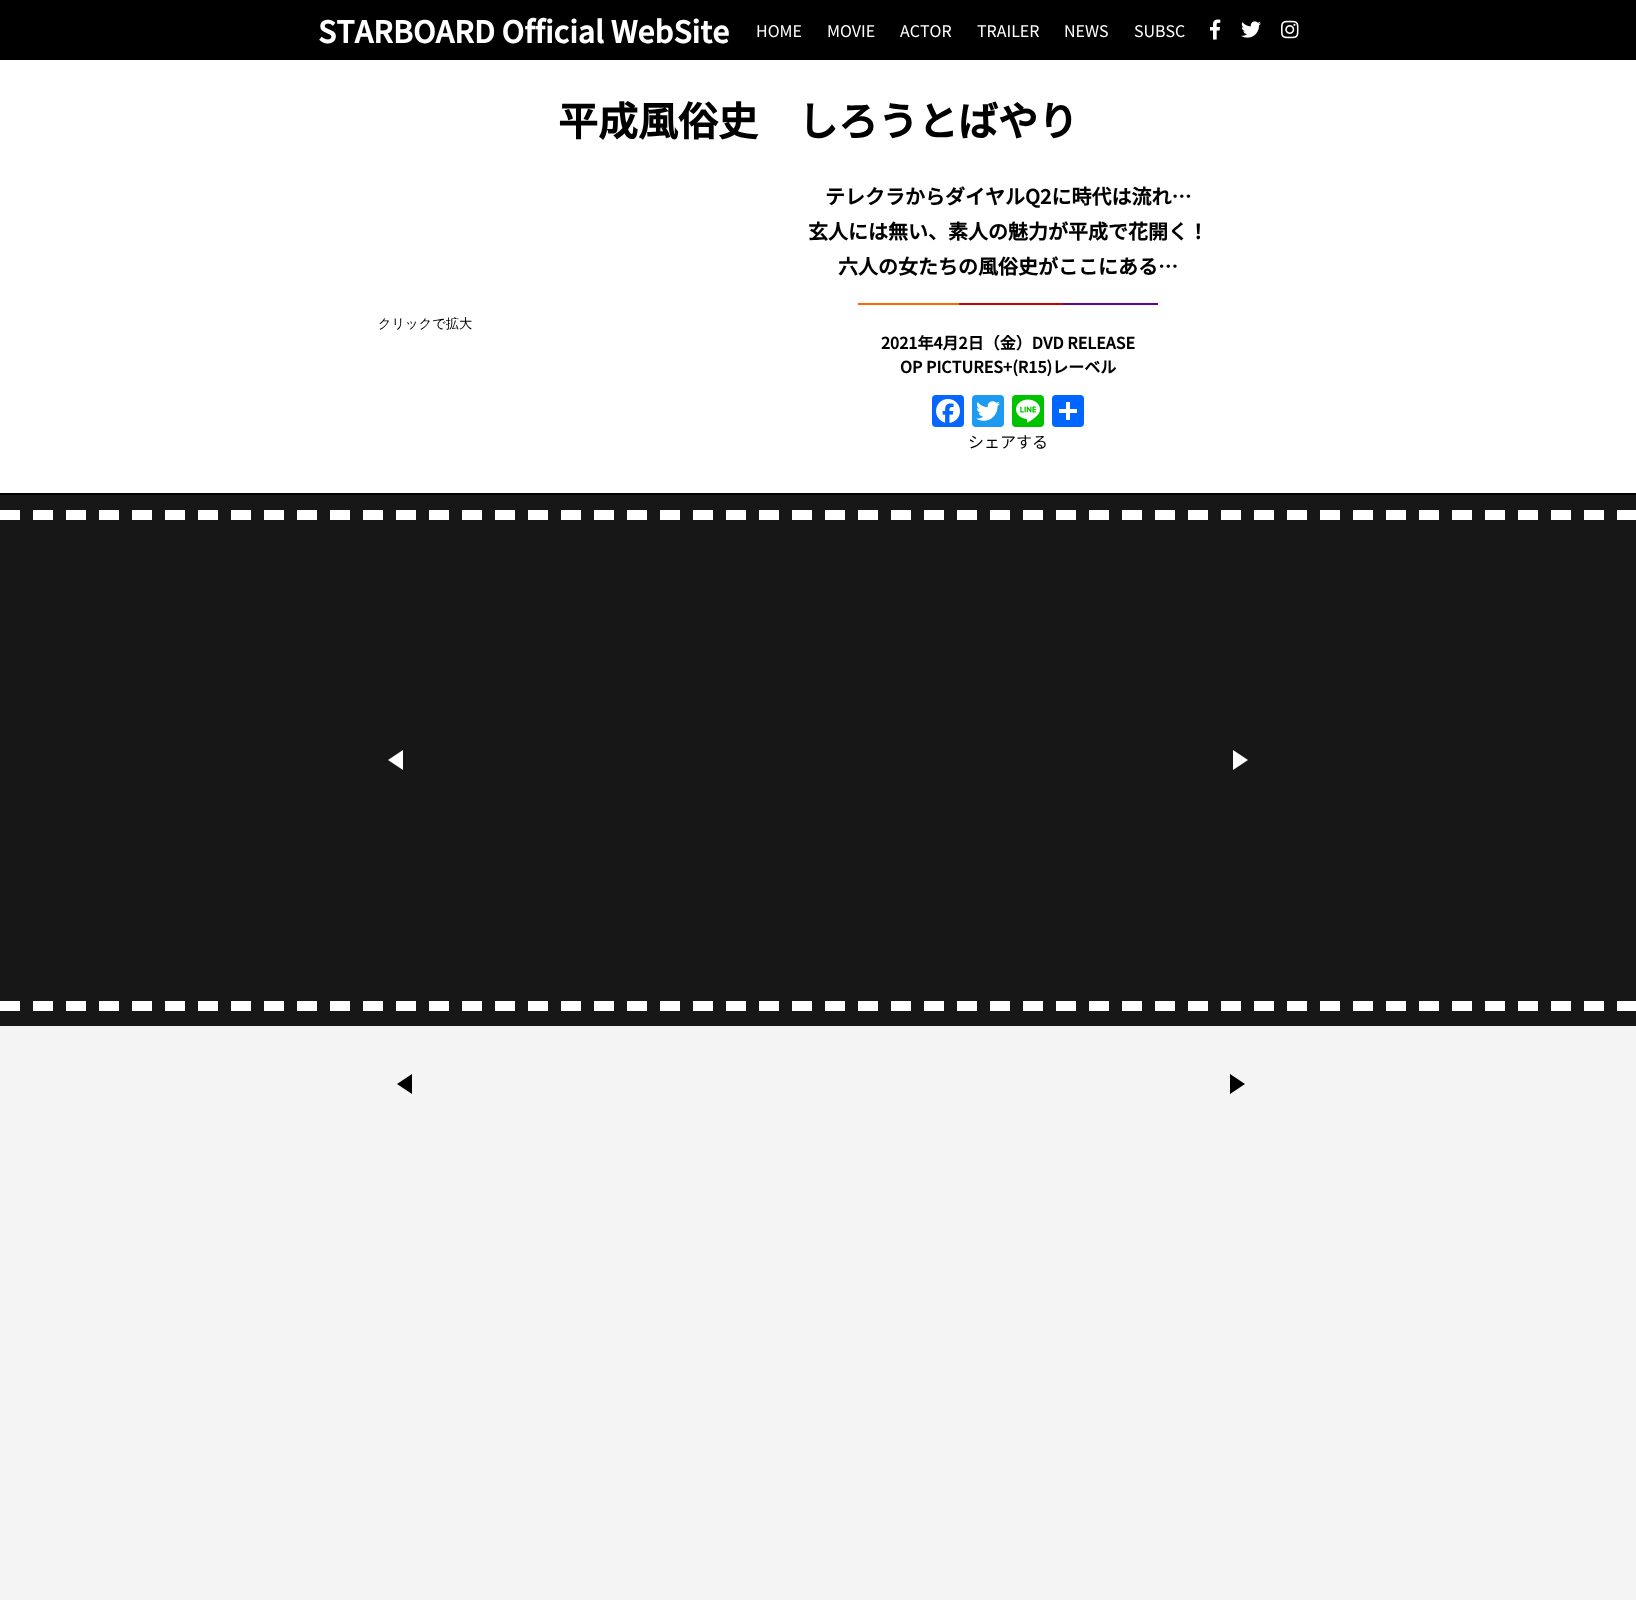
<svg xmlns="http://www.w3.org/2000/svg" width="1636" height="1600">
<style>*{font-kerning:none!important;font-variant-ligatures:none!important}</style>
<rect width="100%" height="100%" fill="#000"/>
<text x="318" y="43" style="font-family:Noto Sans JP;font-size:30px;font-weight:bold;fill:#fff">STARBOARD Official WebSite</text>
<text x="756" y="37" style="font-family:Noto Sans JP;font-size:16px;fill:#fff">HOME</text>
<text x="827" y="37" style="font-family:Noto Sans JP;font-size:16px;fill:#fff">MOVIE</text>
<text x="900" y="37" style="font-family:Noto Sans JP;font-size:16px;fill:#fff">ACTOR</text>
<text x="977" y="37" style="font-family:Noto Sans JP;font-size:16px;fill:#fff">TRAILER</text>
<text x="1064" y="37" style="font-family:Noto Sans JP;font-size:16px;fill:#fff">NEWS</text>
<text x="1134" y="37" style="font-family:Noto Sans JP;font-size:16px;fill:#fff">SUBSC</text>
<image x="1210" y="19" width="11" height="21" href="media/1.png"/>
<image x="1241" y="21" width="20" height="17" href="media/2.png"/>
<image x="1281" y="20" width="18" height="19" href="media/3.png"/>
<rect y="60" width="1636" height="433" fill="#fff"/>
<text x="558" y="136" style="font-family:Noto Sans JP;font-size:40px;font-weight:bold;fill:#000">平成風俗史　しろうとばやり</text>
<text x="378" y="328" style="font-family:WenQuanYi Zen Hei;font-size:13.25px;font-weight:500;fill:#000">クリックで拡大</text>
<text x="825" y="204" style="font-family:Noto Sans JP;font-size:20px;font-weight:bold;fill:#000">テレクラからダイヤルQ2に時代は流れ…</text>
<text x="808" y="239" style="font-family:Noto Sans JP;font-size:20px;font-weight:bold;fill:#000">玄人には無い、素人の魅力が平成で花開く！</text>
<text x="838" y="274" style="font-family:Noto Sans JP;font-size:20px;font-weight:bold;fill:#000">六人の女たちの風俗史がここにある…</text>
<image x="858" y="303" width="300" height="2" href="media/4.png"/>
<text x="881" y="349" style="font-family:Noto Sans JP;font-size:16px;font-weight:bold;fill:#000">2021年4月2日（金）DVD RELEASE</text>
<text x="900" y="373" style="font-family:Noto Sans JP;font-size:16px;font-weight:bold;fill:#000">OP PICTURES+(R15)レーベル</text>
<rect x="932" y="395" width="32" height="32" rx="4" fill="#0866ff"/>
<image x="936" y="399" width="24" height="24" href="media/5.png"/>
<rect x="972" y="395" width="32" height="32" rx="4" fill="#1d9bf0"/>
<image x="976" y="401" width="24" height="20" href="media/6.png"/>
<rect x="1012" y="395" width="32" height="32" rx="4" fill="#00c300"/>
<image x="1016" y="399" width="24" height="24" href="media/7.png"/>
<rect x="1052" y="395" width="32" height="32" rx="4" fill="#0166ff"/>
<rect x="1066" y="402" width="4" height="18" fill="#fff"/>
<rect x="1059" y="409" width="18" height="4" fill="#fff"/>
<text x="968" y="448" style="font-family:Noto Sans JP;font-size:16px;fill:#000">シェアする</text>
<rect y="1026" width="1636" height="574" fill="#f4f4f4"/>
<rect y="495" width="1636" height="30" fill="#171717"/>
<rect y="510" width="20" height="10" fill="#fff"/>
<rect x="33" y="510" width="20" height="10" fill="#fff"/>
<rect x="66" y="510" width="20" height="10" fill="#fff"/>
<rect x="99" y="510" width="20" height="10" fill="#fff"/>
<rect x="132" y="510" width="20" height="10" fill="#fff"/>
<rect x="165" y="510" width="20" height="10" fill="#fff"/>
<rect x="198" y="510" width="20" height="10" fill="#fff"/>
<rect x="231" y="510" width="20" height="10" fill="#fff"/>
<rect x="264" y="510" width="20" height="10" fill="#fff"/>
<rect x="297" y="510" width="20" height="10" fill="#fff"/>
<rect x="330" y="510" width="20" height="10" fill="#fff"/>
<rect x="363" y="510" width="20" height="10" fill="#fff"/>
<rect x="396" y="510" width="20" height="10" fill="#fff"/>
<rect x="429" y="510" width="20" height="10" fill="#fff"/>
<rect x="462" y="510" width="20" height="10" fill="#fff"/>
<rect x="495" y="510" width="20" height="10" fill="#fff"/>
<rect x="528" y="510" width="20" height="10" fill="#fff"/>
<rect x="561" y="510" width="20" height="10" fill="#fff"/>
<rect x="594" y="510" width="20" height="10" fill="#fff"/>
<rect x="627" y="510" width="20" height="10" fill="#fff"/>
<rect x="660" y="510" width="20" height="10" fill="#fff"/>
<rect x="693" y="510" width="20" height="10" fill="#fff"/>
<rect x="726" y="510" width="20" height="10" fill="#fff"/>
<rect x="759" y="510" width="20" height="10" fill="#fff"/>
<rect x="792" y="510" width="20" height="10" fill="#fff"/>
<rect x="825" y="510" width="20" height="10" fill="#fff"/>
<rect x="858" y="510" width="20" height="10" fill="#fff"/>
<rect x="891" y="510" width="20" height="10" fill="#fff"/>
<rect x="924" y="510" width="20" height="10" fill="#fff"/>
<rect x="957" y="510" width="20" height="10" fill="#fff"/>
<rect x="990" y="510" width="20" height="10" fill="#fff"/>
<rect x="1023" y="510" width="20" height="10" fill="#fff"/>
<rect x="1056" y="510" width="20" height="10" fill="#fff"/>
<rect x="1089" y="510" width="20" height="10" fill="#fff"/>
<rect x="1122" y="510" width="20" height="10" fill="#fff"/>
<rect x="1155" y="510" width="20" height="10" fill="#fff"/>
<rect x="1188" y="510" width="20" height="10" fill="#fff"/>
<rect x="1221" y="510" width="20" height="10" fill="#fff"/>
<rect x="1254" y="510" width="20" height="10" fill="#fff"/>
<rect x="1287" y="510" width="20" height="10" fill="#fff"/>
<rect x="1320" y="510" width="20" height="10" fill="#fff"/>
<rect x="1353" y="510" width="20" height="10" fill="#fff"/>
<rect x="1386" y="510" width="20" height="10" fill="#fff"/>
<rect x="1419" y="510" width="20" height="10" fill="#fff"/>
<rect x="1452" y="510" width="20" height="10" fill="#fff"/>
<rect x="1485" y="510" width="20" height="10" fill="#fff"/>
<rect x="1518" y="510" width="20" height="10" fill="#fff"/>
<rect x="1551" y="510" width="20" height="10" fill="#fff"/>
<rect x="1584" y="510" width="20" height="10" fill="#fff"/>
<rect x="1617" y="510" width="19" height="10" fill="#fff"/>
<rect y="525" width="1636" height="501" fill="#171717"/>
<rect y="1001" width="20" height="10" fill="#fff"/>
<rect x="33" y="1001" width="20" height="10" fill="#fff"/>
<rect x="66" y="1001" width="20" height="10" fill="#fff"/>
<rect x="99" y="1001" width="20" height="10" fill="#fff"/>
<rect x="132" y="1001" width="20" height="10" fill="#fff"/>
<rect x="165" y="1001" width="20" height="10" fill="#fff"/>
<rect x="198" y="1001" width="20" height="10" fill="#fff"/>
<rect x="231" y="1001" width="20" height="10" fill="#fff"/>
<rect x="264" y="1001" width="20" height="10" fill="#fff"/>
<rect x="297" y="1001" width="20" height="10" fill="#fff"/>
<rect x="330" y="1001" width="20" height="10" fill="#fff"/>
<rect x="363" y="1001" width="20" height="10" fill="#fff"/>
<rect x="396" y="1001" width="20" height="10" fill="#fff"/>
<rect x="429" y="1001" width="20" height="10" fill="#fff"/>
<rect x="462" y="1001" width="20" height="10" fill="#fff"/>
<rect x="495" y="1001" width="20" height="10" fill="#fff"/>
<rect x="528" y="1001" width="20" height="10" fill="#fff"/>
<rect x="561" y="1001" width="20" height="10" fill="#fff"/>
<rect x="594" y="1001" width="20" height="10" fill="#fff"/>
<rect x="627" y="1001" width="20" height="10" fill="#fff"/>
<rect x="660" y="1001" width="20" height="10" fill="#fff"/>
<rect x="693" y="1001" width="20" height="10" fill="#fff"/>
<rect x="726" y="1001" width="20" height="10" fill="#fff"/>
<rect x="759" y="1001" width="20" height="10" fill="#fff"/>
<rect x="792" y="1001" width="20" height="10" fill="#fff"/>
<rect x="825" y="1001" width="20" height="10" fill="#fff"/>
<rect x="858" y="1001" width="20" height="10" fill="#fff"/>
<rect x="891" y="1001" width="20" height="10" fill="#fff"/>
<rect x="924" y="1001" width="20" height="10" fill="#fff"/>
<rect x="957" y="1001" width="20" height="10" fill="#fff"/>
<rect x="990" y="1001" width="20" height="10" fill="#fff"/>
<rect x="1023" y="1001" width="20" height="10" fill="#fff"/>
<rect x="1056" y="1001" width="20" height="10" fill="#fff"/>
<rect x="1089" y="1001" width="20" height="10" fill="#fff"/>
<rect x="1122" y="1001" width="20" height="10" fill="#fff"/>
<rect x="1155" y="1001" width="20" height="10" fill="#fff"/>
<rect x="1188" y="1001" width="20" height="10" fill="#fff"/>
<rect x="1221" y="1001" width="20" height="10" fill="#fff"/>
<rect x="1254" y="1001" width="20" height="10" fill="#fff"/>
<rect x="1287" y="1001" width="20" height="10" fill="#fff"/>
<rect x="1320" y="1001" width="20" height="10" fill="#fff"/>
<rect x="1353" y="1001" width="20" height="10" fill="#fff"/>
<rect x="1386" y="1001" width="20" height="10" fill="#fff"/>
<rect x="1419" y="1001" width="20" height="10" fill="#fff"/>
<rect x="1452" y="1001" width="20" height="10" fill="#fff"/>
<rect x="1485" y="1001" width="20" height="10" fill="#fff"/>
<rect x="1518" y="1001" width="20" height="10" fill="#fff"/>
<rect x="1551" y="1001" width="20" height="10" fill="#fff"/>
<rect x="1584" y="1001" width="20" height="10" fill="#fff"/>
<rect x="1617" y="1001" width="19" height="10" fill="#fff"/>
<path d="M403 750v20l-15-10z" fill="#fff"/>
<path d="M1233 770v-20l15 10z" fill="#fff"/>
<path d="M412 1074v20l-15-10z" fill="#000"/>
<path d="M1230 1094v-20l15 10z" fill="#000"/>
</svg>
